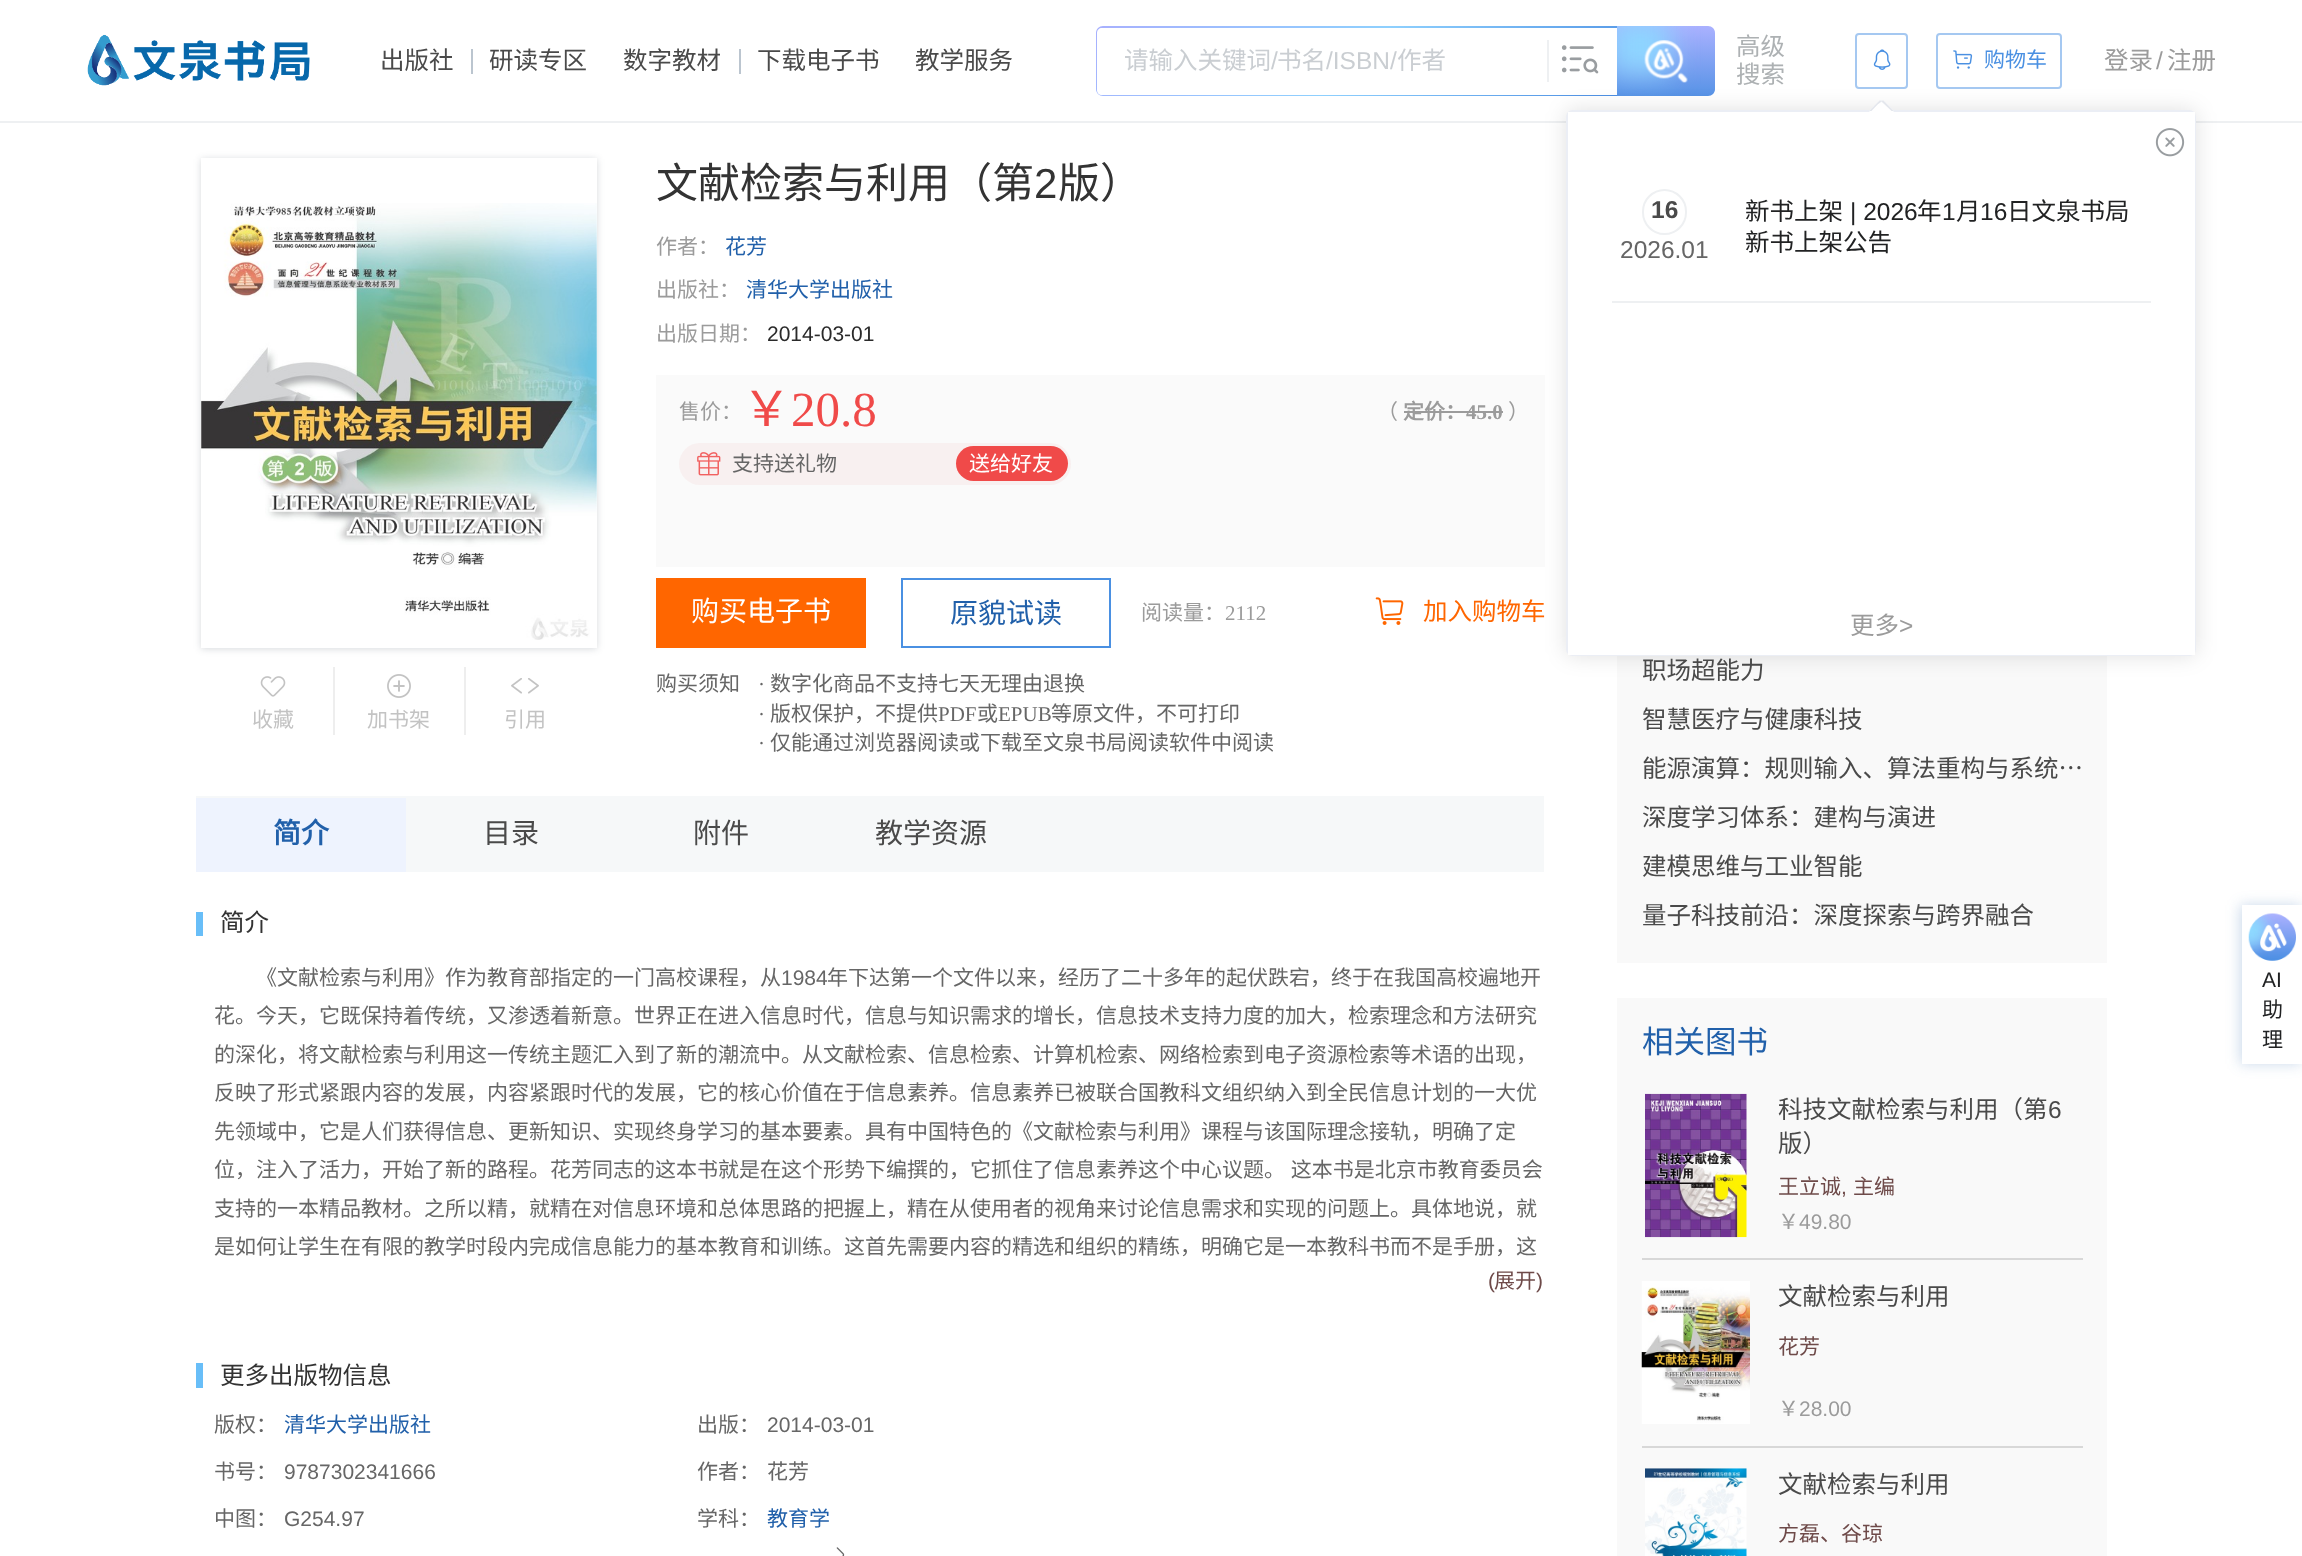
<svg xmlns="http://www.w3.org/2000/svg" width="2302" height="1556">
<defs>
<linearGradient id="g1" gradientUnits="userSpaceOnUse" x1="1208" y1="-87" x2="1504" y2="209"><stop offset="0" stop-color="#a8b0fe"/><stop offset="0.5" stop-color="#8ed0fe"/><stop offset="1" stop-color="#4c8ee2"/></linearGradient>
<linearGradient id="g2" gradientUnits="userSpaceOnUse" x1="1666" y1="26" x2="1666" y2="96"><stop offset="0" stop-color="#aab1ff"/><stop offset="1" stop-color="#5793e6"/></linearGradient>
<clipPath id="clip1"><rect x="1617" y="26" width="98" height="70"/></clipPath>
<clipPath id="clip2"><path d="M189 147h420v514h-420zm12 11h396v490h-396z" clip-rule="evenodd"/></clipPath>
<clipPath id="clip3"><path d="M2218 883h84v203h-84zm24 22h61v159h-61z" clip-rule="evenodd"/></clipPath>
</defs>
<rect width="100%" height="100%" fill="#fff"/>
<rect y="121" width="2302" height="2" fill="#eef0f2"/>
<image x="87" y="34" width="223" height="52" href="media/1.png"/>
<text x="380" y="69" style="font-family:Noto Sans CJK SC;font-size:24.5px;fill:#4a4a4a">出版社</text>
<rect x="471" y="49" width="2" height="25" fill="#bbc5cf"/>
<text x="489" y="69" style="font-family:Noto Sans CJK SC;font-size:24.5px;fill:#4a4a4a">研读专区</text>
<text x="623" y="69" style="font-family:Noto Sans CJK SC;font-size:24.5px;fill:#4a4a4a">数字教材</text>
<rect x="739" y="49" width="2" height="25" fill="#bbc5cf"/>
<text x="757" y="69" style="font-family:Noto Sans CJK SC;font-size:24.5px;fill:#4a4a4a">下载电子书</text>
<text x="915" y="69" style="font-family:Noto Sans CJK SC;font-size:24.5px;fill:#4a4a4a">教学服务</text>
<path d="M1103 26h514v70h-514c-4 0-7-3-7-7v-56c0-4 3-7 7-7z" fill="url(#g1)"/>
<path d="M1102 28h515v67h-515c-3 0-5-2-5-5v-57c0-3 2-5 5-5z" fill="#fff"/>
<text x="1124" y="69" style="font-family:Noto Sans CJK SC;font-size:24.5px;fill:#caced2">请输入关键词</text>
<text x="1271" y="69" style="font-family:Liberation Sans;font-size:24.5px;fill:#caced2">/</text>
<text x="1277" y="69" style="font-family:Noto Sans CJK SC;font-size:24.5px;fill:#caced2">书名</text>
<text x="1326" y="69" style="font-family:Liberation Sans;font-size:24.5px;fill:#caced2">/ISBN/</text>
<text x="1397" y="69" style="font-family:Noto Sans CJK SC;font-size:24.5px;fill:#caced2">作者</text>
<path d="M1617 26h91c4 0 7 3 7 7v56c0 4-3 7-7 7h-91z" fill="url(#g2)"/>
<g clip-path="url(#clip1)">
<rect x="1610" y="19" width="60" height="56" fill="#8ed6ff" filter="blur(14px)"/>
</g>
<image x="1644" y="40" width="44" height="43" href="media/2.png"/>
<rect x="1547" y="40" width="2" height="42" fill="#eef0f2"/>
<image x="1561" y="45" width="38" height="29" href="media/3.png"/>
<text x="1736" y="55" style="font-family:Noto Sans CJK SC;font-size:24.5px;fill:#adb1b3">高级</text>
<text x="1736" y="83" style="font-family:Noto Sans CJK SC;font-size:24.5px;fill:#adb1b3">搜索</text>
<rect x="1937" y="34" width="124" height="54" rx="3" fill="none" stroke="#a5c8f1" stroke-width="2"/>
<image x="1953" y="50" width="20" height="19" href="media/4.png"/>
<text x="1984" y="67" style="font-family:Noto Sans CJK SC;font-size:21px;fill:#4a90e2">购物车</text>
<text x="2104" y="69" style="font-family:Noto Sans CJK SC;font-size:24.5px;fill:#9b9b9b">登录</text>
<text x="2156" y="69" style="font-family:Liberation Sans;font-size:24.5px;fill:#9b9b9b">/</text>
<text x="2167" y="69" style="font-family:Noto Sans CJK SC;font-size:24.5px;fill:#9b9b9b">注册</text>
<rect x="1856" y="34" width="51" height="54" rx="3" fill="none" stroke="#a5c8f1" stroke-width="2"/>
<image x="1873" y="49" width="18" height="21" href="media/5.png"/>
<rect x="656" y="375" width="889" height="192" fill="#fafafa"/>
<rect x="1617" y="656" width="490" height="307" fill="#f9f9f9"/>
<rect x="1566" y="110" width="630" height="546" rx="7" fill="#0000001f" filter="blur(10.5px)"/>
<rect x="1567" y="111" width="628" height="544" rx="6" fill="none" stroke="#ebeef5" stroke-width="2"/>
<path d="M1884 101l10 10l-12.5 12.5l-12.5-12.5l10-10c1.5-1 3.5-1 5 0z" fill="#fff"/>
<path d="M1882.5 102.5l9 8.5h2.5l-10.5-10.5h-2v1.5z" fill="#e4e7ed"/>
<path d="M1879.5 100.5h2v1.5c-2 0-8 7-10 9h-2.5z" fill="#e4e7ed"/>
<rect x="1568" y="112" width="627" height="543" fill="#fff"/>
<image x="2155" y="128" width="30" height="29" href="media/6.png"/>
<rect x="1612" y="301" width="539" height="2" fill="#eef0f2"/>
<rect x="1643" y="190" width="43" height="44" rx="21.5" fill="none" stroke="#eef0f2" stroke-width="2"/>
<text x="1651" y="218" style="font-family:Liberation Sans;font-size:24.5px;font-weight:bold;fill:#4a4a4a">16</text>
<text x="1620" y="258" style="font-family:Liberation Sans;font-size:24.5px;fill:#666">2026.01</text>
<text x="1745" y="220" style="font-family:Noto Sans CJK SC;font-size:24.5px;fill:#212223">新书上架</text>
<text x="1850" y="220" style="font-family:Liberation Sans;font-size:24.5px;fill:#212223">| 2026</text>
<text x="1917" y="220" style="font-family:Noto Sans CJK SC;font-size:24.5px;fill:#212223">年</text>
<text x="1942" y="220" style="font-family:Liberation Sans;font-size:24.5px;fill:#212223">1</text>
<text x="1956" y="220" style="font-family:Noto Sans CJK SC;font-size:24.5px;fill:#212223">月</text>
<text x="1980" y="220" style="font-family:Liberation Sans;font-size:24.5px;fill:#212223">16</text>
<text x="2007" y="220" style="font-family:Noto Sans CJK SC;font-size:24.5px;fill:#212223">日文泉书局</text>
<text x="1745" y="251" style="font-family:Noto Sans CJK SC;font-size:24.5px;fill:#212223">新书上架公告</text>
<text x="1850" y="634" style="font-family:Noto Sans CJK SC;font-size:24.5px;fill:#9b9b9b">更多</text>
<text x="1899" y="634" style="font-family:Liberation Sans;font-size:24.5px;fill:#9b9b9b">&gt;</text>
<image x="201" y="203" width="396" height="437" href="media/7.png"/>
<g clip-path="url(#clip2)">
<rect x="201" y="159" width="396" height="490" fill="#2030412e" filter="blur(3.5px)"/>
</g>
<image x="260" y="676" width="26" height="21" href="media/8.png"/>
<text x="252" y="727" style="font-family:Noto Sans CJK SC;font-size:21px;fill:#c3c3c3">收藏</text>
<rect x="464" y="667" width="2" height="68" fill="#eee"/>
<rect x="333" y="667" width="2" height="68" fill="#eee"/>
<image x="387" y="674" width="24" height="24" href="media/9.png"/>
<text x="367" y="727" style="font-family:Noto Sans CJK SC;font-size:21px;fill:#c3c3c3">加书架</text>
<image x="511" y="678" width="28" height="16" href="media/10.png"/>
<text x="504" y="727" style="font-family:Noto Sans CJK SC;font-size:21px;fill:#c3c3c3">引用</text>
<text x="656" y="198" style="font-family:Noto Sans CJK SC;font-size:42px;fill:#333">文献检索与利用（第</text>
<text x="1034" y="198" style="font-family:Liberation Sans;font-size:42px;fill:#333">2</text>
<text x="1058" y="198" style="font-family:Noto Sans CJK SC;font-size:42px;fill:#333">版）</text>
<text x="656" y="254" style="font-family:Noto Sans CJK SC;font-size:21px;fill:#9b9b9b">作者：</text>
<text x="725" y="254" style="font-family:Noto Sans CJK SC;font-size:21px;fill:#2160aa">花芳</text>
<text x="656" y="297" style="font-family:Noto Sans CJK SC;font-size:21px;fill:#9b9b9b">出版社：</text>
<text x="746" y="297" style="font-family:Noto Sans CJK SC;font-size:21px;fill:#2160aa">清华大学出版社</text>
<text x="656" y="341" style="font-family:Noto Sans CJK SC;font-size:21px;fill:#9b9b9b">出版日期：</text>
<text x="767" y="341" style="font-family:Liberation Sans;font-size:21px;fill:#2a2a2a">2014-03-01</text>
<text x="679" y="419" style="font-family:Noto Sans CJK SC;font-size:21px;fill:#9b9b9b">售价：</text>
<text x="742" y="426" style="font-family:Noto Sans CJK SC;font-size:49px;fill:#f04a49">￥</text>
<text x="791" y="426" style="font-family:Liberation Serif;font-size:49px;fill:#f04a49">20.8</text>
<text x="1377" y="419" style="font-family:Noto Sans CJK SC;font-size:21px;fill:#9b9b9b">（</text>
<text x="1403" y="419" style="font-family:Noto Sans CJK SC;font-size:21px;font-weight:bold;fill:#9b9b9b">定价：</text>
<text x="1466" y="419" style="font-family:Liberation Serif;font-size:21px;font-weight:bold;fill:#9b9b9b">45.0</text>
<rect x="1404" y="411" width="99" height="2" fill="#9b9b9b"/>
<text x="1508" y="419" style="font-family:Noto Sans CJK SC;font-size:21px;fill:#9b9b9b">）</text>
<rect x="679" y="443" width="392" height="42" rx="21" fill="#f8f0f0"/>
<image x="697" y="452" width="24" height="24" href="media/11.png"/>
<text x="732" y="471" style="font-family:Noto Sans CJK SC;font-size:21px;fill:#666">支持送礼物</text>
<rect x="956" y="446" width="112" height="35" rx="17.5" fill="#f04a49"/>
<text x="969" y="471" style="font-family:Noto Sans CJK SC;font-size:21px;fill:#fff">送给好友</text>
<rect x="656" y="578" width="210" height="70" fill="#f60"/>
<text x="691" y="621" style="font-family:Noto Sans CJK SC;font-size:28px;fill:#fff">购买电子书</text>
<rect x="902" y="579" width="208" height="68" fill="none" stroke="#4a90e2" stroke-width="2"/>
<text x="950" y="623" style="font-family:Noto Sans CJK SC;font-size:28px;fill:#2160aa">原貌试读</text>
<text x="1141" y="620" style="font-family:Noto Sans CJK SC;font-size:21px;fill:#9b9b9b">阅读量：</text>
<text x="1225" y="620" style="font-family:Liberation Serif;font-size:21px;fill:#9b9b9b">2112</text>
<image x="1375" y="597" width="29" height="28" href="media/12.png"/>
<text x="1423" y="620" style="font-family:Noto Sans CJK SC;font-size:24.5px;fill:#f60">加入购物车</text>
<text x="656" y="691" style="font-family:Noto Sans CJK SC;font-size:21px;fill:#666">购买须知</text>
<text x="758" y="691" style="font-family:Liberation Serif;font-size:21px;fill:#666">·</text>
<text x="770" y="691" style="font-family:Noto Sans CJK SC;font-size:21px;fill:#666">数字化商品不支持七天无理由退换</text>
<text x="758" y="721" style="font-family:Liberation Serif;font-size:21px;fill:#666">·</text>
<text x="770" y="721" style="font-family:Noto Sans CJK SC;font-size:21px;fill:#666">版权保护，不提供</text>
<text x="938" y="721" style="font-family:Liberation Serif;font-size:21px;fill:#666">PDF</text>
<text x="977" y="721" style="font-family:Noto Sans CJK SC;font-size:21px;fill:#666">或</text>
<text x="998" y="721" style="font-family:Liberation Serif;font-size:21px;fill:#666">EPUB</text>
<text x="1051" y="721" style="font-family:Noto Sans CJK SC;font-size:21px;fill:#666">等原文件，不可打印</text>
<text x="758" y="750" style="font-family:Liberation Serif;font-size:21px;fill:#666">·</text>
<text x="770" y="750" style="font-family:Noto Sans CJK SC;font-size:21px;fill:#666">仅能通过浏览器阅读或下载至文泉书局阅读软件中阅读</text>
<rect x="196" y="796" width="1348" height="76" fill="#f6f8f9"/>
<rect x="196" y="798" width="210" height="74" fill="#eef3fe"/>
<text x="273" y="843" style="font-family:Noto Sans CJK SC;font-size:28px;font-weight:bold;fill:#2160aa">简介</text>
<text x="483" y="843" style="font-family:Noto Sans CJK SC;font-size:28px;fill:#4a4a4a">目录</text>
<text x="693" y="843" style="font-family:Noto Sans CJK SC;font-size:28px;fill:#4a4a4a">附件</text>
<text x="875" y="843" style="font-family:Noto Sans CJK SC;font-size:28px;fill:#4a4a4a">教学资源</text>
<rect x="196" y="912" width="7" height="24" fill="#68bef8"/>
<text x="220" y="931" style="font-family:Noto Sans CJK SC;font-size:24.5px;fill:#333">简介</text>
<text x="256" y="985" style="font-family:Noto Sans CJK SC;font-size:21px;fill:#666">《文献检索与利用》作为教育部指定的一门高校课程，从</text>
<text x="781" y="985" style="font-family:Liberation Sans;font-size:21px;fill:#666">1984</text>
<text x="827" y="985" style="font-family:Noto Sans CJK SC;font-size:21px;fill:#666">年下达第一个文件以来，经历了二十多年的起伏跌宕，终于在我国高校遍地开</text>
<text x="214" y="1023" style="font-family:Noto Sans CJK SC;font-size:21px;fill:#666">花。今天，它既保持着传统，又渗透着新意。世界正在进入信息时代，信息与知识需求的增长，信息技术支持力度的加大，检索理念和方法研究</text>
<text x="214" y="1062" style="font-family:Noto Sans CJK SC;font-size:21px;fill:#666">的深化，将文献检索与利用这一传统主题汇入到了新的潮流中。从文献检索、信息检索、计算机检索、网络检索到电子资源检索等术语的出现，</text>
<text x="214" y="1100" style="font-family:Noto Sans CJK SC;font-size:21px;fill:#666">反映了形式紧跟内容的发展，内容紧跟时代的发展，它的核心价值在于信息素养。信息素养已被联合国教科文组织纳入到全民信息计划的一大优</text>
<text x="214" y="1139" style="font-family:Noto Sans CJK SC;font-size:21px;fill:#666">先领域中，它是人们获得信息、更新知识、实现终身学习的基本要素。具有中国特色的《文献检索与利用》课程与该国际理念接轨，明确了定</text>
<text x="214" y="1177" word-spacing="1" style="font-family:Noto Sans CJK SC;font-size:21px;fill:#666">位，注入了活力，开始了新的路程。花芳同志的这本书就是在这个形势下编撰的，它抓住了信息素养这个中心议题。 这本书是北京市教育委员会</text>
<text x="214" y="1216" style="font-family:Noto Sans CJK SC;font-size:21px;fill:#666">支持的一本精品教材。之所以精，就精在对信息环境和总体思路的把握上，精在从使用者的视角来讨论信息需求和实现的问题上。具体地说，就</text>
<text x="214" y="1254" style="font-family:Noto Sans CJK SC;font-size:21px;fill:#666">是如何让学生在有限的教学时段内完成信息能力的基本教育和训练。这首先需要内容的精选和组织的精练，明确它是一本教科书而不是手册，这</text>
<text x="1488" y="1288" style="font-family:Liberation Sans;font-size:21px;fill:#6e4a49">(</text>
<text x="1494" y="1288" style="font-family:Noto Sans CJK SC;font-size:21px;fill:#6e4a49">展开</text>
<text x="1536" y="1288" style="font-family:Liberation Sans;font-size:21px;fill:#6e4a49">)</text>
<rect x="196" y="1363" width="7" height="25" fill="#68bef8"/>
<text x="220" y="1384" style="font-family:Noto Sans CJK SC;font-size:24.5px;fill:#333">更多出版物信息</text>
<text x="214" y="1432" style="font-family:Noto Sans CJK SC;font-size:21px;fill:#666">版权：</text>
<text x="284" y="1432" style="font-family:Noto Sans CJK SC;font-size:21px;fill:#2160aa">清华大学出版社</text>
<text x="697" y="1432" style="font-family:Noto Sans CJK SC;font-size:21px;fill:#666">出版：</text>
<text x="767" y="1432" style="font-family:Liberation Sans;font-size:21px;fill:#666">2014-03-01</text>
<text x="214" y="1479" style="font-family:Noto Sans CJK SC;font-size:21px;fill:#666">书号：</text>
<text x="284" y="1479" style="font-family:Liberation Sans;font-size:21px;fill:#666">9787302341666</text>
<text x="697" y="1479" style="font-family:Noto Sans CJK SC;font-size:21px;fill:#666">作者：</text>
<text x="767" y="1479" style="font-family:Noto Sans CJK SC;font-size:21px;fill:#666">花芳</text>
<text x="214" y="1526" style="font-family:Noto Sans CJK SC;font-size:21px;fill:#666">中图：</text>
<text x="284" y="1526" style="font-family:Liberation Sans;font-size:21px;fill:#666">G254.97</text>
<text x="697" y="1526" style="font-family:Noto Sans CJK SC;font-size:21px;fill:#666">学科：</text>
<text x="767" y="1526" style="font-family:Noto Sans CJK SC;font-size:21px;fill:#2160aa">教育学</text>
<image x="836" y="1547" width="9" height="9" href="media/13.png"/>
<text x="1642" y="679" style="font-family:Noto Sans CJK SC;font-size:24.5px;fill:#4a4a4a">职场超能力</text>
<text x="1642" y="728" style="font-family:Noto Sans CJK SC;font-size:24.5px;fill:#4a4a4a">智慧医疗与健康科技</text>
<text x="1642" y="777" style="font-family:Noto Sans CJK SC;font-size:24.5px;fill:#4a4a4a">能源演算：规则输入、算法重构与系统…</text>
<text x="1642" y="826" style="font-family:Noto Sans CJK SC;font-size:24.5px;fill:#4a4a4a">深度学习体系：建构与演进</text>
<text x="1642" y="875" style="font-family:Noto Sans CJK SC;font-size:24.5px;fill:#4a4a4a">建模思维与工业智能</text>
<text x="1642" y="924" style="font-family:Noto Sans CJK SC;font-size:24.5px;fill:#4a4a4a">量子科技前沿：深度探索与跨界融合</text>
<rect x="1617" y="998" width="490" height="558" fill="#f9f9f9"/>
<text x="1642" y="1053" style="font-family:Noto Sans CJK SC;font-size:31.5px;fill:#2160aa">相关图书</text>
<image x="1645" y="1093" width="102" height="145" href="media/14.png"/>
<text x="1778" y="1118" style="font-family:Noto Sans CJK SC;font-size:24.5px;fill:#4a4a4a">科技文献检索与利用（第</text>
<text x="2048" y="1118" style="font-family:Liberation Sans;font-size:24.5px;fill:#4a4a4a">6</text>
<text x="1778" y="1152" style="font-family:Noto Sans CJK SC;font-size:24.5px;fill:#4a4a4a">版）</text>
<text x="1778" y="1194" style="font-family:Noto Sans CJK SC;font-size:21px;fill:#6e4a49">王立诚</text>
<text x="1841" y="1194" style="font-family:Liberation Sans;font-size:21px;fill:#6e4a49">,</text>
<text x="1853" y="1194" style="font-family:Noto Sans CJK SC;font-size:21px;fill:#6e4a49">主编</text>
<text x="1778" y="1229" style="font-family:Noto Sans CJK SC;font-size:21px;fill:#9b9b9b">￥</text>
<text x="1799" y="1229" style="font-family:Liberation Sans;font-size:21px;fill:#9b9b9b">49.80</text>
<rect x="1642" y="1258" width="441" height="2" fill="#d8d8d8"/>
<image x="1641" y="1281" width="109" height="143" href="media/15.png"/>
<text x="1778" y="1305" style="font-family:Noto Sans CJK SC;font-size:24.5px;fill:#4a4a4a">文献检索与利用</text>
<text x="1778" y="1354" style="font-family:Noto Sans CJK SC;font-size:21px;fill:#6e4a49">花芳</text>
<text x="1778" y="1416" style="font-family:Noto Sans CJK SC;font-size:21px;fill:#9b9b9b">￥</text>
<text x="1799" y="1416" style="font-family:Liberation Sans;font-size:21px;fill:#9b9b9b">28.00</text>
<rect x="1642" y="1446" width="441" height="2" fill="#d8d8d8"/>
<image x="1645" y="1468" width="102" height="88" href="media/16.png"/>
<text x="1778" y="1493" style="font-family:Noto Sans CJK SC;font-size:24.5px;fill:#4a4a4a">文献检索与利用</text>
<text x="1778" y="1541" style="font-family:Noto Sans CJK SC;font-size:21px;fill:#6e4a49">方磊、谷琼</text>
<g clip-path="url(#clip3)">
<rect x="2240" y="905" width="61" height="159" fill="#2061aa3b" filter="blur(7px)"/>
</g>
<image x="2248" y="913" width="48" height="48" href="media/17.png"/>
<text x="2262" y="987" style="font-family:Liberation Sans;font-size:21px;fill:#212223">AI</text>
<text x="2262" y="1017" style="font-family:Noto Sans CJK SC;font-size:21px;fill:#212223">助</text>
<text x="2262" y="1047" style="font-family:Noto Sans CJK SC;font-size:21px;fill:#212223">理</text>
</svg>
